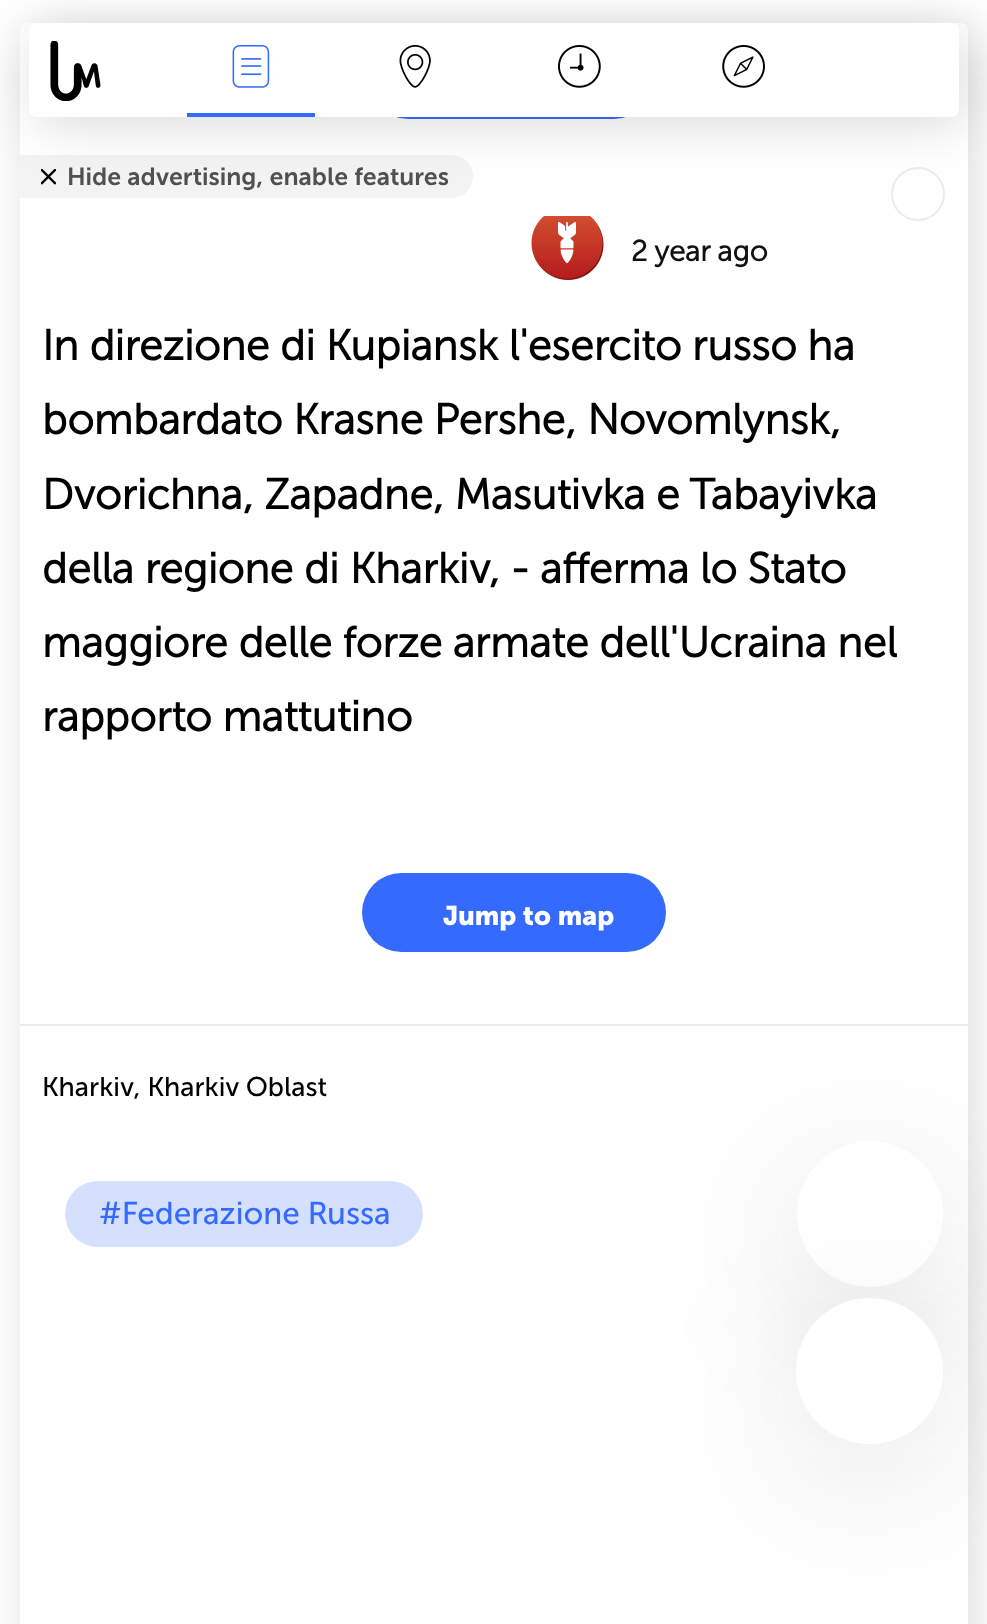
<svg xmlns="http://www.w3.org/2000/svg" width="987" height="1624">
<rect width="100%" height="100%" fill="#fff"/>
<rect x="27" y="32" width="947" height="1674" rx="7" fill="#100f0f24" filter="blur(25px)"/>
<rect x="20" y="23" width="948" height="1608" rx="7" fill="#fff"/>
<rect x="369" y="41" width="284" height="78" rx="39" fill="#346afe"/>
<circle cx="918" cy="194" r="26" fill="none" stroke="#e6ecef" stroke-width="2"/>
<path d="M20 155h431.5c12 0 21.5 9.5 21.5 21.5c0 12-9.5 21.5-21.5 21.5h-431.5z" fill="#f3f3f3"/>
<image x="41" y="169" width="15" height="16" href="media/6.png"/>
<rect x="36" y="32" width="929" height="94" rx="7" fill="#100f0f24" filter="blur(25px)"/>
<rect x="29" y="23" width="930" height="94" rx="7" fill="#fff"/>
<image x="50" y="41" width="51" height="60" href="media/1.png"/>
<rect x="187" y="113" width="128" height="4" fill="#346afe"/>
<image x="232" y="45" width="38" height="43" href="media/2.png"/>
<image x="399" y="45" width="32" height="43" href="media/3.png"/>
<image x="558" y="45" width="43" height="43" href="media/4.png"/>
<image x="722" y="45" width="43" height="43" href="media/5.png"/>
<text x="67" y="185" style="font-family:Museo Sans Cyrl;font-size:24.75px;font-weight:600;fill:#505050">Hide advertising, enable features</text>
<image x="531" y="216" width="73" height="64" href="media/7.png"/>
<text x="631" y="261" style="font-family:Museo Sans Cyrl;font-size:29.25px;font-weight:bold;fill:#111">2 year ago</text>
<text x="42" y="360" style="font-family:Museo Sans Cyrl;font-size:42.75px;font-weight:bold;fill:#000">In direzione di Kupiansk l'esercito russo ha</text>
<text x="42" y="434" style="font-family:Museo Sans Cyrl;font-size:42.75px;font-weight:bold;fill:#000">bombardato Krasne Pershe, Novomlynsk,</text>
<text x="42" y="509" style="font-family:Museo Sans Cyrl;font-size:42.75px;font-weight:bold;fill:#000">Dvorichna, Zapadne, Masutivka e Tabayivka</text>
<text x="42" y="583" style="font-family:Museo Sans Cyrl;font-size:42.75px;font-weight:bold;fill:#000">della regione di Kharkiv, - afferma lo Stato</text>
<text x="42" y="657" style="font-family:Museo Sans Cyrl;font-size:42.75px;font-weight:bold;fill:#000">maggiore delle forze armate dell'Ucraina nel</text>
<text x="42" y="731" style="font-family:Museo Sans Cyrl;font-size:42.75px;font-weight:bold;fill:#000">rapporto mattutino</text>
<rect x="20" y="1024" width="948" height="2" fill="#ececec"/>
<rect x="362" y="873" width="304" height="79" rx="39.5" fill="#346afe"/>
<text x="443" y="925" style="font-family:'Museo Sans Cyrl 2';font-size:27px;font-weight:bold;fill:#fff">Jump to map</text>
<text x="42" y="1096" style="font-family:Museo Sans Cyrl;font-size:27px;fill:#000">Kharkiv, Kharkiv Oblast</text>
<rect x="65" y="1181" width="358" height="66" rx="33" fill="#d5e0ff"/>
<text x="99" y="1224" style="font-family:Museo Sans Cyrl;font-size:31.5px;fill:#346afe">#Federazione Russa</text>
<rect x="801" y="1179" width="137" height="137" rx="68.5" fill="#100f0f24" filter="blur(73px)"/>
<circle cx="870" cy="1214" r="73" fill="#fff"/>
<rect x="801" y="1337" width="137" height="137" rx="68.5" fill="#100f0f24" filter="blur(73px)"/>
<path d="M870 1444c-41 0-74-32-74-73c0-40 33-73 74-73c40 0 73 33 73 73c0 41-33 73-73 73z" fill="#fff"/>
</svg>
